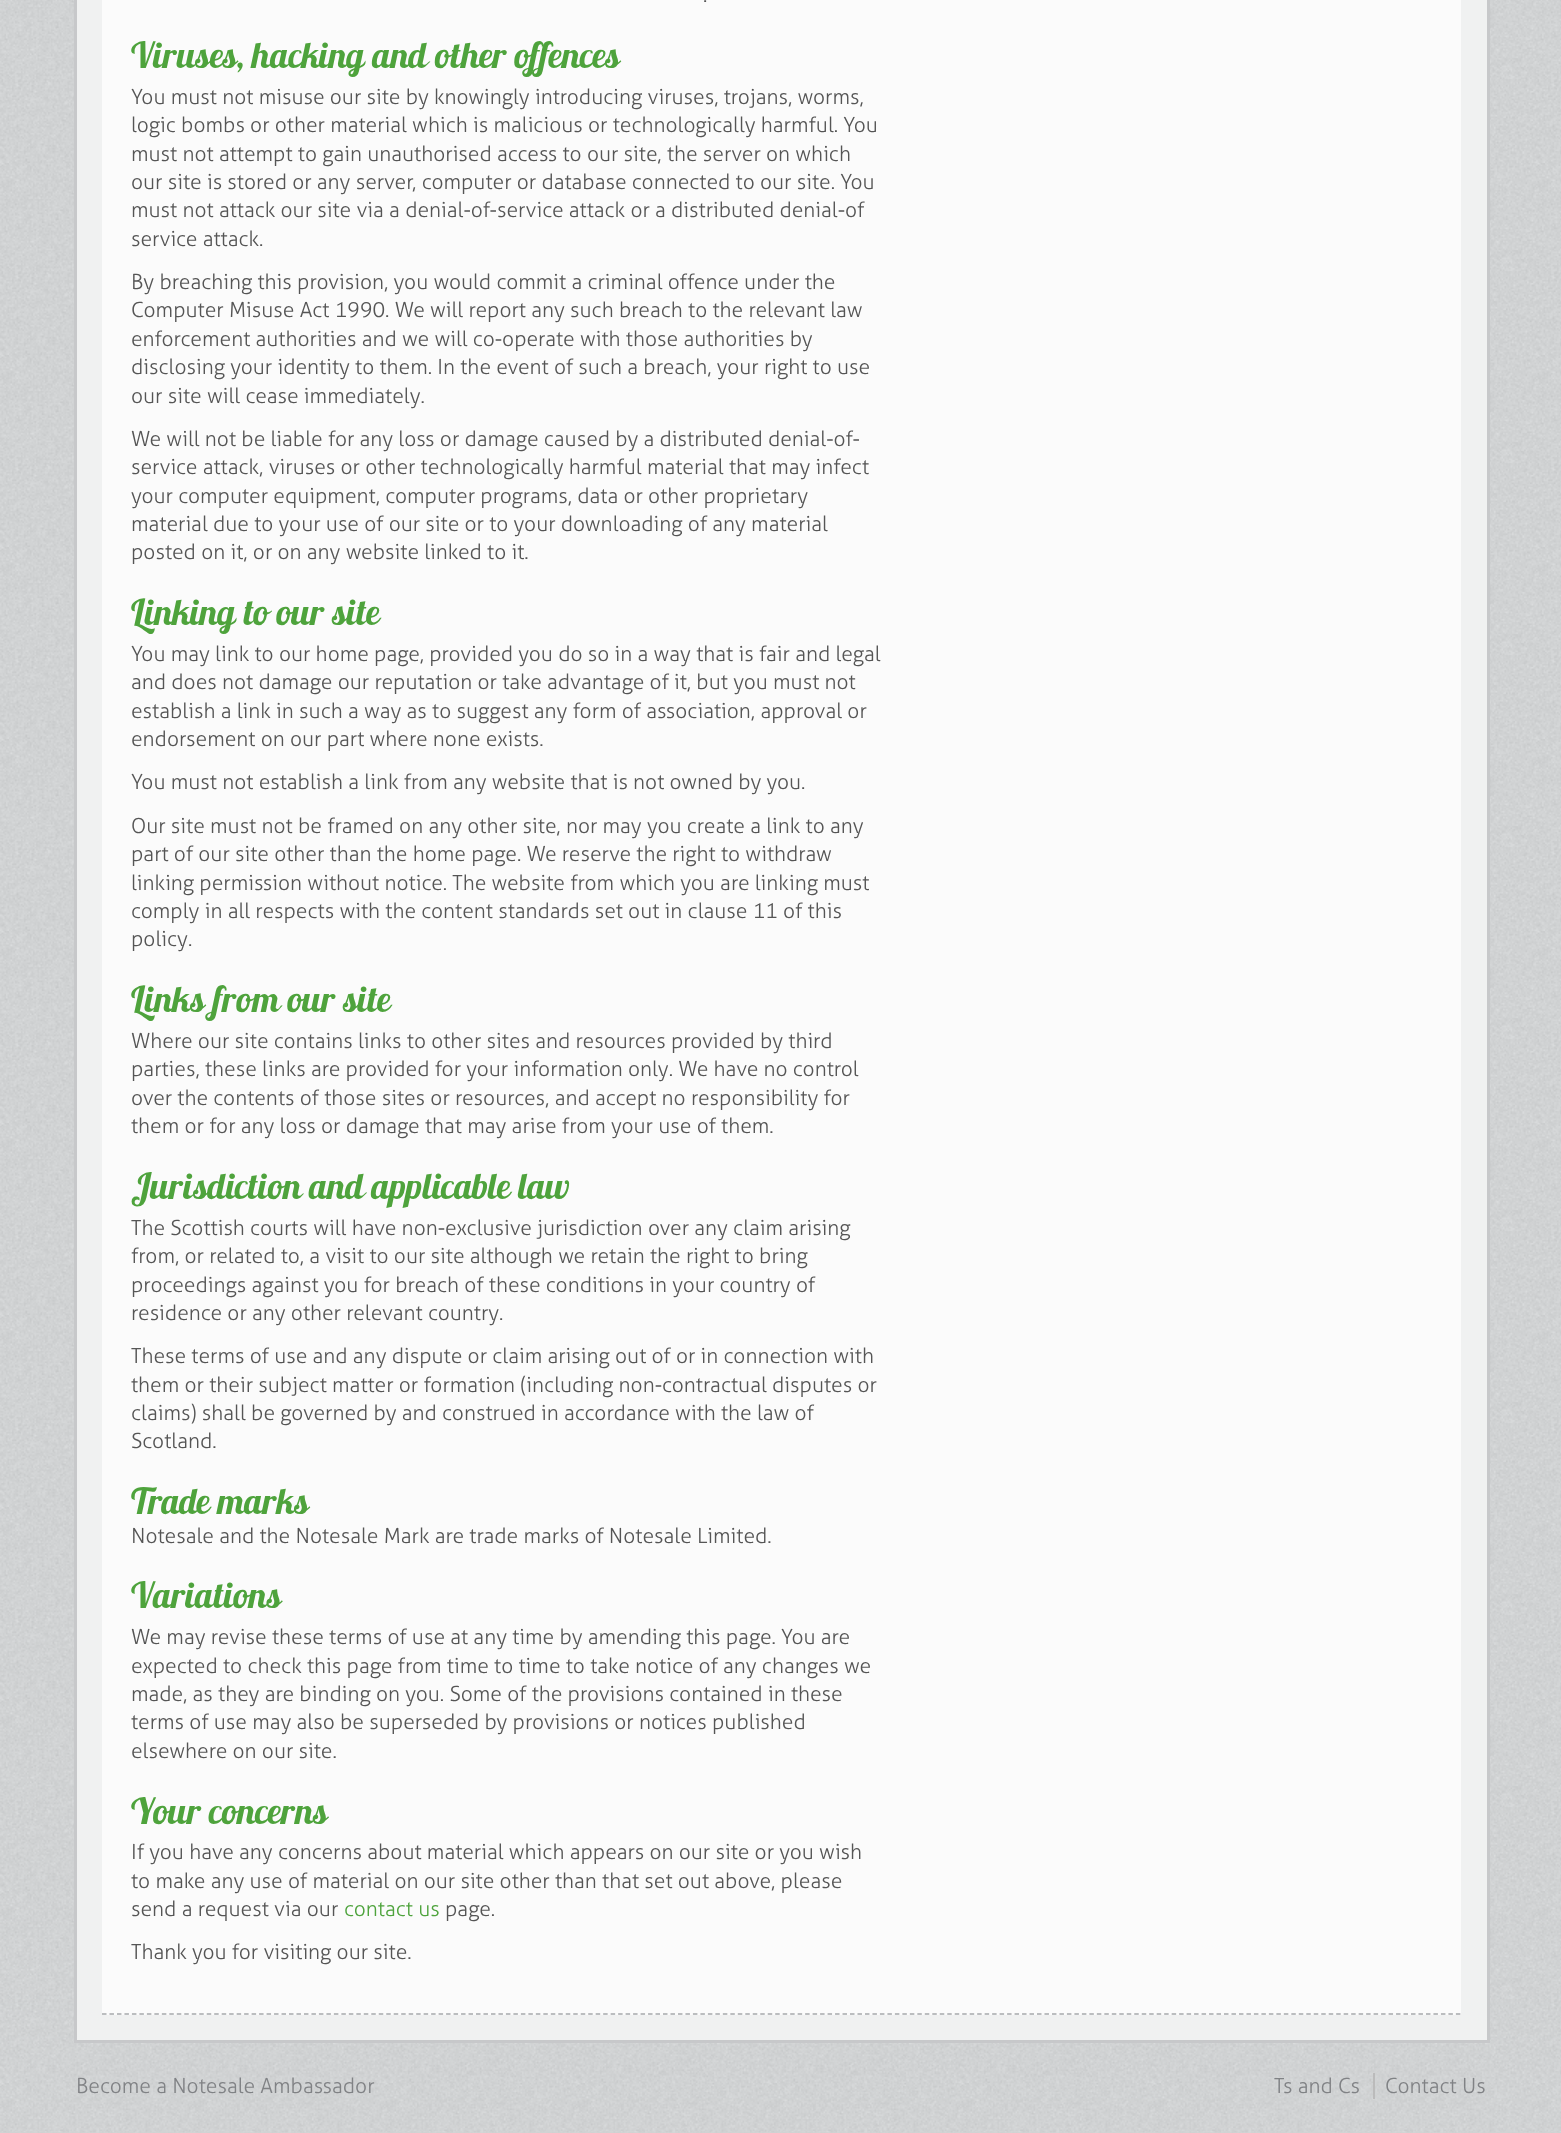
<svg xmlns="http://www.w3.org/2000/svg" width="1561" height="2133">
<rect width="100%" height="100%" fill="#d0d2d3"/>
<image x="0" y="0" width="1561" height="2133" href="media/1.png"/>
<rect x="77" width="1410" height="2040" fill="#f0f1f1"/>
<rect x="1487" width="3" height="2043" fill="#c7c8ca"/>
<rect x="74" y="2040" width="1416" height="3" fill="#c7c8ca"/>
<rect x="74" width="3" height="2043" fill="#c7c8ca"/>
<rect x="102" width="1359" height="2015" fill="#fbfbfb"/>
<path d="M102 2014h1359" fill="none" stroke="#a7a9ac" stroke-width="1.5" stroke-dasharray="4.5 2.98"/>
<text x="703" y="2" style="font-family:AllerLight;font-size:21px;fill:#555">.</text>
<text x="131" y="68" style="font-family:'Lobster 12';font-size:36px;fill:#4ea33c">Viruses, hacking and other offences</text>
<text x="131" y="104" style="font-family:AllerLight;font-size:21px;fill:#555">You must not misuse our site by knowingly introducing viruses, trojans, worms,</text>
<text x="131" y="132" style="font-family:AllerLight;font-size:21px;fill:#555">logic bombs or other material which is malicious or technologically harmful. You</text>
<text x="131" y="161" style="font-family:AllerLight;font-size:21px;fill:#555">must not attempt to gain unauthorised access to our site, the server on which</text>
<text x="131" y="189" style="font-family:AllerLight;font-size:21px;fill:#555">our site is stored or any server, computer or database connected to our site. You</text>
<text x="131" y="217" style="font-family:AllerLight;font-size:21px;fill:#555">must not attack our site via a denial-of-service attack or a distributed denial-of</text>
<text x="131" y="246" style="font-family:AllerLight;font-size:21px;fill:#555">service attack.</text>
<text x="131" y="289" style="font-family:AllerLight;font-size:21px;fill:#555">By breaching this provision, you would commit a criminal offence under the</text>
<text x="131" y="317" style="font-family:AllerLight;font-size:21px;fill:#555">Computer Misuse Act 1990. We will report any such breach to the relevant law</text>
<text x="131" y="346" style="font-family:AllerLight;font-size:21px;fill:#555">enforcement authorities and we will co-operate with those authorities by</text>
<text x="131" y="374" style="font-family:AllerLight;font-size:21px;fill:#555">disclosing your identity to them. In the event of such a breach, your right to use</text>
<text x="131" y="403" style="font-family:AllerLight;font-size:21px;fill:#555">our site will cease immediately.</text>
<text x="131" y="446" style="font-family:AllerLight;font-size:21px;fill:#555">We will not be liable for any loss or damage caused by a distributed denial-of-</text>
<text x="131" y="474" style="font-family:AllerLight;font-size:21px;fill:#555">service attack, viruses or other technologically harmful material that may infect</text>
<text x="131" y="503" style="font-family:AllerLight;font-size:21px;fill:#555">your computer equipment, computer programs, data or other proprietary</text>
<text x="131" y="531" style="font-family:AllerLight;font-size:21px;fill:#555">material due to your use of our site or to your downloading of any material</text>
<text x="131" y="559" style="font-family:AllerLight;font-size:21px;fill:#555">posted on it, or on any website linked to it.</text>
<text x="131" y="625" style="font-family:'Lobster 12';font-size:36px;fill:#4ea33c">Linking to our site</text>
<text x="131" y="661" style="font-family:AllerLight;font-size:21px;fill:#555">You may link to our home page, provided you do so in a way that is fair and legal</text>
<text x="131" y="689" style="font-family:AllerLight;font-size:21px;fill:#555">and does not damage our reputation or take advantage of it, but you must not</text>
<text x="131" y="718" style="font-family:AllerLight;font-size:21px;fill:#555">establish a link in such a way as to suggest any form of association, approval or</text>
<text x="131" y="746" style="font-family:AllerLight;font-size:21px;fill:#555">endorsement on our part where none exists.</text>
<text x="131" y="789" style="font-family:AllerLight;font-size:21px;fill:#555">You must not establish a link from any website that is not owned by you.</text>
<text x="131" y="833" style="font-family:AllerLight;font-size:21px;fill:#555">Our site must not be framed on any other site, nor may you create a link to any</text>
<text x="131" y="861" style="font-family:AllerLight;font-size:21px;fill:#555">part of our site other than the home page. We reserve the right to withdraw</text>
<text x="131" y="890" style="font-family:AllerLight;font-size:21px;fill:#555">linking permission without notice. The website from which you are linking must</text>
<text x="131" y="918" style="font-family:AllerLight;font-size:21px;fill:#555">comply in all respects with the content standards set out in clause 11 of this</text>
<text x="131" y="946" style="font-family:AllerLight;font-size:21px;fill:#555">policy.</text>
<text x="131" y="1012" style="font-family:'Lobster 12';font-size:36px;fill:#4ea33c">Links from our site</text>
<text x="131" y="1048" style="font-family:AllerLight;font-size:21px;fill:#555">Where our site contains links to other sites and resources provided by third</text>
<text x="131" y="1076" style="font-family:AllerLight;font-size:21px;fill:#555">parties, these links are provided for your information only. We have no control</text>
<text x="131" y="1105" style="font-family:AllerLight;font-size:21px;fill:#555">over the contents of those sites or resources, and accept no responsibility for</text>
<text x="131" y="1133" style="font-family:AllerLight;font-size:21px;fill:#555">them or for any loss or damage that may arise from your use of them.</text>
<text x="131" y="1199" style="font-family:'Lobster 12';font-size:36px;fill:#4ea33c">Jurisdiction and applicable law</text>
<text x="131" y="1235" style="font-family:AllerLight;font-size:21px;fill:#555">The Scottish courts will have non-exclusive jurisdiction over any claim arising</text>
<text x="131" y="1263" style="font-family:AllerLight;font-size:21px;fill:#555">from, or related to, a visit to our site although we retain the right to bring</text>
<text x="131" y="1292" style="font-family:AllerLight;font-size:21px;fill:#555">proceedings against you for breach of these conditions in your country of</text>
<text x="131" y="1320" style="font-family:AllerLight;font-size:21px;fill:#555">residence or any other relevant country.</text>
<text x="131" y="1363" style="font-family:AllerLight;font-size:21px;fill:#555">These terms of use and any dispute or claim arising out of or in connection with</text>
<text x="131" y="1392" style="font-family:AllerLight;font-size:21px;fill:#555">them or their subject matter or formation (including non-contractual disputes or</text>
<text x="131" y="1420" style="font-family:AllerLight;font-size:21px;fill:#555">claims) shall be governed by and construed in accordance with the law of</text>
<text x="131" y="1448" style="font-family:AllerLight;font-size:21px;fill:#555">Scotland.</text>
<text x="131" y="1514" style="font-family:'Lobster 12';font-size:36px;fill:#4ea33c">Trade marks</text>
<text x="131" y="1543" style="font-family:AllerLight;font-size:21px;fill:#555">Notesale and the Notesale Mark are trade marks of Notesale Limited.</text>
<text x="131" y="1608" style="font-family:'Lobster 12';font-size:36px;fill:#4ea33c">Variations</text>
<text x="131" y="1644" style="font-family:AllerLight;font-size:21px;fill:#555">We may revise these terms of use at any time by amending this page. You are</text>
<text x="131" y="1673" style="font-family:AllerLight;font-size:21px;fill:#555">expected to check this page from time to time to take notice of any changes we</text>
<text x="131" y="1701" style="font-family:AllerLight;font-size:21px;fill:#555">made, as they are binding on you. Some of the provisions contained in these</text>
<text x="131" y="1729" style="font-family:AllerLight;font-size:21px;fill:#555">terms of use may also be superseded by provisions or notices published</text>
<text x="131" y="1758" style="font-family:AllerLight;font-size:21px;fill:#555">elsewhere on our site.</text>
<text x="131" y="1824" style="font-family:'Lobster 12';font-size:36px;fill:#4ea33c">Your concerns</text>
<text x="131" y="1859" style="font-family:AllerLight;font-size:21px;fill:#555">If you have any concerns about material which appears on our site or you wish</text>
<text x="131" y="1888" style="font-family:AllerLight;font-size:21px;fill:#555">to make any use of material on our site other than that set out above, please</text>
<text x="131" y="1916" style="font-family:AllerLight;font-size:21px;fill:#555">send a request via our</text>
<text x="344" y="1916" style="font-family:AllerLight;font-size:21px;fill:#4ea33c">contact us</text>
<text x="445" y="1916" style="font-family:AllerLight;font-size:21px;fill:#555">page.</text>
<text x="131" y="1959" style="font-family:AllerLight;font-size:21px;fill:#555">Thank you for visiting our site.</text>
<text x="76" y="2093" style="font-family:AllerLight;font-size:21px;fill:#808285">Become a Notesale Ambassador</text>
<text x="1274" y="2093" style="font-family:AllerLight;font-size:21px;fill:#808285">Ts and Cs</text>
<rect x="1373" y="2073" width="2" height="26" fill="#bbb"/>
<text x="1385" y="2093" style="font-family:AllerLight;font-size:21px;fill:#808285">Contact Us</text>
</svg>
